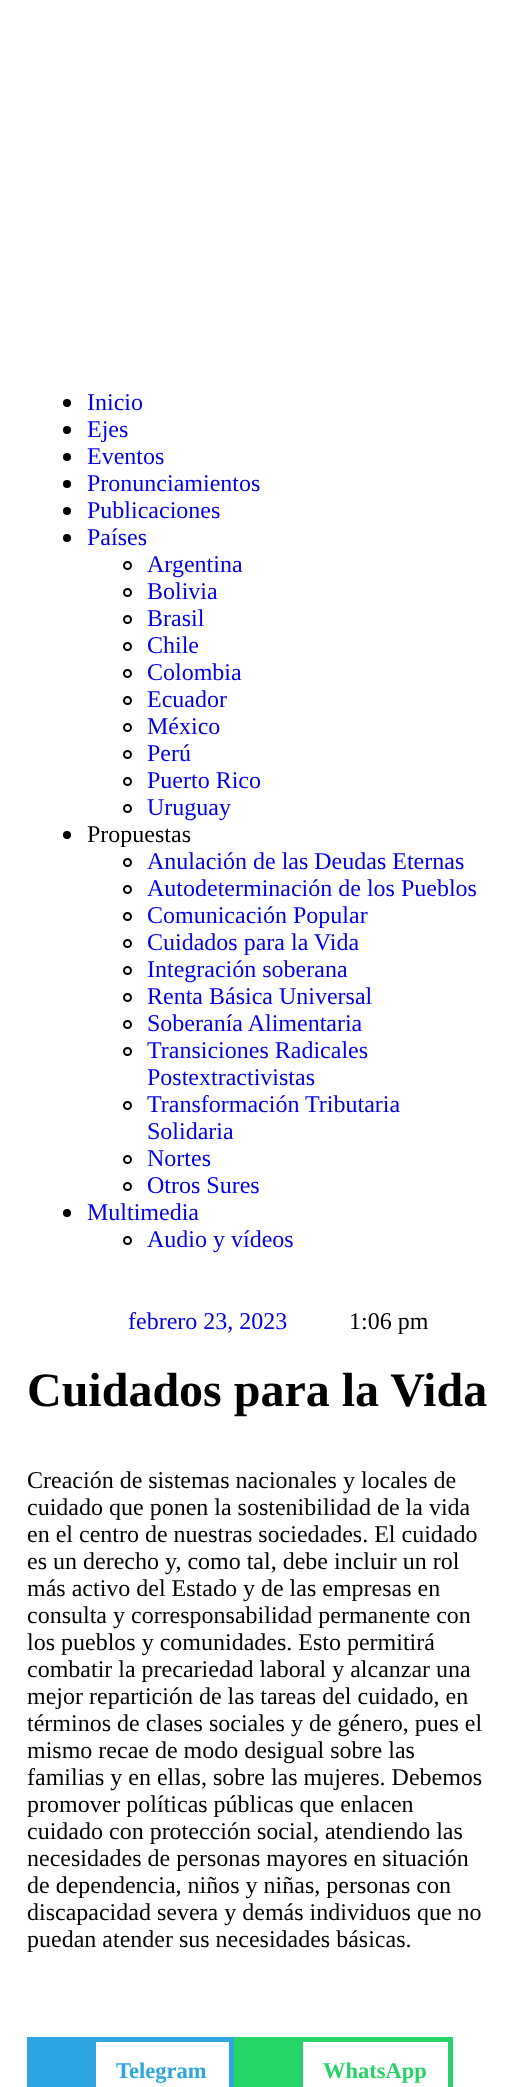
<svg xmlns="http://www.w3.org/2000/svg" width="519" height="2087">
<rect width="100%" height="100%" fill="#fff"/>
<circle cx="67" cy="403" r="4" fill="#000"/>
<text x="87" y="410" style="font-family:Liberation Serif;font-size:24px;fill:#00e">Inicio</text>
<circle cx="67" cy="430" r="4" fill="#000"/>
<text x="87" y="437" style="font-family:Liberation Serif;font-size:24px;fill:#00e">Ejes</text>
<circle cx="67" cy="457" r="4" fill="#000"/>
<text x="87" y="464" style="font-family:Liberation Serif;font-size:24px;fill:#00e">Eventos</text>
<circle cx="67" cy="484" r="4" fill="#000"/>
<text x="87" y="491" style="font-family:Liberation Serif;font-size:24px;fill:#00e">Pronunciamientos</text>
<circle cx="67" cy="511" r="4" fill="#000"/>
<text x="87" y="518" style="font-family:Liberation Serif;font-size:24px;fill:#00e">Publicaciones</text>
<circle cx="67" cy="538" r="4" fill="#000"/>
<text x="87" y="545" style="font-family:Liberation Serif;font-size:24px;fill:#00e">Países</text>
<circle cx="127.5" cy="565.5" r="3.5" fill="none" stroke="#000" stroke-width="2"/>
<text x="147" y="572" style="font-family:Liberation Serif;font-size:24px;fill:#00e">Argentina</text>
<circle cx="127.5" cy="592.5" r="3.5" fill="none" stroke="#000" stroke-width="2"/>
<text x="147" y="599" style="font-family:Liberation Serif;font-size:24px;fill:#00e">Bolivia</text>
<circle cx="127.5" cy="619.5" r="3.5" fill="none" stroke="#000" stroke-width="2"/>
<text x="147" y="626" style="font-family:Liberation Serif;font-size:24px;fill:#00e">Brasil</text>
<circle cx="127.5" cy="646.5" r="3.5" fill="none" stroke="#000" stroke-width="2"/>
<text x="147" y="653" style="font-family:Liberation Serif;font-size:24px;fill:#00e">Chile</text>
<circle cx="127.5" cy="673.5" r="3.5" fill="none" stroke="#000" stroke-width="2"/>
<text x="147" y="680" style="font-family:Liberation Serif;font-size:24px;fill:#00e">Colombia</text>
<circle cx="127.5" cy="700.5" r="3.5" fill="none" stroke="#000" stroke-width="2"/>
<text x="147" y="707" style="font-family:Liberation Serif;font-size:24px;fill:#00e">Ecuador</text>
<circle cx="127.5" cy="727.5" r="3.5" fill="none" stroke="#000" stroke-width="2"/>
<text x="147" y="734" style="font-family:Liberation Serif;font-size:24px;fill:#00e">México</text>
<circle cx="127.5" cy="754.5" r="3.5" fill="none" stroke="#000" stroke-width="2"/>
<text x="147" y="761" style="font-family:Liberation Serif;font-size:24px;fill:#00e">Perú</text>
<circle cx="127.5" cy="781.5" r="3.5" fill="none" stroke="#000" stroke-width="2"/>
<text x="147" y="788" style="font-family:Liberation Serif;font-size:24px;fill:#00e">Puerto Rico</text>
<circle cx="127.5" cy="808.5" r="3.5" fill="none" stroke="#000" stroke-width="2"/>
<text x="147" y="815" style="font-family:Liberation Serif;font-size:24px;fill:#00e">Uruguay</text>
<circle cx="67" cy="835" r="4" fill="#000"/>
<text x="87" y="842" style="font-family:Liberation Serif;font-size:24px;fill:#000">Propuestas</text>
<circle cx="127.5" cy="862.5" r="3.5" fill="none" stroke="#000" stroke-width="2"/>
<text x="147" y="869" style="font-family:Liberation Serif;font-size:24px;fill:#00e">Anulación de las Deudas Eternas</text>
<circle cx="127.5" cy="889.5" r="3.5" fill="none" stroke="#000" stroke-width="2"/>
<text x="147" y="896" style="font-family:Liberation Serif;font-size:24px;fill:#00e">Autodeterminación de los Pueblos</text>
<circle cx="127.5" cy="916.5" r="3.5" fill="none" stroke="#000" stroke-width="2"/>
<text x="147" y="923" style="font-family:Liberation Serif;font-size:24px;fill:#00e">Comunicación Popular</text>
<circle cx="127.5" cy="943.5" r="3.5" fill="none" stroke="#000" stroke-width="2"/>
<text x="147" y="950" style="font-family:Liberation Serif;font-size:24px;fill:#00e">Cuidados para la Vida</text>
<circle cx="127.5" cy="970.5" r="3.5" fill="none" stroke="#000" stroke-width="2"/>
<text x="147" y="977" style="font-family:Liberation Serif;font-size:24px;fill:#00e">Integración soberana</text>
<circle cx="127.5" cy="997.5" r="3.5" fill="none" stroke="#000" stroke-width="2"/>
<text x="147" y="1004" style="font-family:Liberation Serif;font-size:24px;fill:#00e">Renta Básica Universal</text>
<circle cx="127.5" cy="1024.5" r="3.5" fill="none" stroke="#000" stroke-width="2"/>
<text x="147" y="1031" style="font-family:Liberation Serif;font-size:24px;fill:#00e">Soberanía Alimentaria</text>
<circle cx="127.5" cy="1051.5" r="3.5" fill="none" stroke="#000" stroke-width="2"/>
<text x="147" y="1058" style="font-family:Liberation Serif;font-size:24px;fill:#00e">Transiciones Radicales</text>
<text x="147" y="1085" style="font-family:Liberation Serif;font-size:24px;fill:#00e">Postextractivistas</text>
<circle cx="127.5" cy="1105.5" r="3.5" fill="none" stroke="#000" stroke-width="2"/>
<text x="147" y="1112" style="font-family:Liberation Serif;font-size:24px;fill:#00e">Transformación Tributaria</text>
<text x="147" y="1139" style="font-family:Liberation Serif;font-size:24px;fill:#00e">Solidaria</text>
<circle cx="127.5" cy="1159.5" r="3.5" fill="none" stroke="#000" stroke-width="2"/>
<text x="147" y="1166" style="font-family:Liberation Serif;font-size:24px;fill:#00e">Nortes</text>
<circle cx="127.5" cy="1186.5" r="3.5" fill="none" stroke="#000" stroke-width="2"/>
<text x="147" y="1193" style="font-family:Liberation Serif;font-size:24px;fill:#00e">Otros Sures</text>
<circle cx="67" cy="1213" r="4" fill="#000"/>
<text x="87" y="1220" style="font-family:Liberation Serif;font-size:24px;fill:#00e">Multimedia</text>
<circle cx="127.5" cy="1240.5" r="3.5" fill="none" stroke="#000" stroke-width="2"/>
<text x="147" y="1247" style="font-family:Liberation Serif;font-size:24px;fill:#00e">Audio y vídeos</text>
<text x="128" y="1329" style="font-family:Liberation Serif;font-size:24px;fill:#00e">febrero 23, 2023</text>
<text x="349" y="1329" style="font-family:Liberation Serif;font-size:24px;fill:#000">1:06 pm</text>
<text x="27" y="1406" style="font-family:Liberation Serif;font-size:48px;font-weight:bold;fill:#000">Cuidados para la Vida</text>
<text x="27" y="1488" style="font-family:Liberation Serif;font-size:24px;fill:#000">Creación de sistemas nacionales y locales de</text>
<text x="27" y="1515" style="font-family:Liberation Serif;font-size:24px;fill:#000">cuidado que ponen la sostenibilidad de la vida</text>
<text x="27" y="1542" style="font-family:Liberation Serif;font-size:24px;fill:#000">en el centro de nuestras sociedades. El cuidado</text>
<text x="27" y="1569" style="font-family:Liberation Serif;font-size:24px;fill:#000">es un derecho y, como tal, debe incluir un rol</text>
<text x="27" y="1596" style="font-family:Liberation Serif;font-size:24px;fill:#000">más activo del Estado y de las empresas en</text>
<text x="27" y="1623" style="font-family:Liberation Serif;font-size:24px;fill:#000">consulta y corresponsabilidad permanente con</text>
<text x="27" y="1650" style="font-family:Liberation Serif;font-size:24px;fill:#000">los pueblos y comunidades. Esto permitirá</text>
<text x="27" y="1677" style="font-family:Liberation Serif;font-size:24px;fill:#000">combatir la precariedad laboral y alcanzar una</text>
<text x="27" y="1704" style="font-family:Liberation Serif;font-size:24px;fill:#000">mejor repartición de las tareas del cuidado, en</text>
<text x="27" y="1731" style="font-family:Liberation Serif;font-size:24px;fill:#000">términos de clases sociales y de género, pues el</text>
<text x="27" y="1758" style="font-family:Liberation Serif;font-size:24px;fill:#000">mismo recae de modo desigual sobre las</text>
<text x="27" y="1785" style="font-family:Liberation Serif;font-size:24px;fill:#000">familias y en ellas, sobre las mujeres. Debemos</text>
<text x="27" y="1812" style="font-family:Liberation Serif;font-size:24px;fill:#000">promover políticas públicas que enlacen</text>
<text x="27" y="1839" style="font-family:Liberation Serif;font-size:24px;fill:#000">cuidado con protección social, atendiendo las</text>
<text x="27" y="1866" style="font-family:Liberation Serif;font-size:24px;fill:#000">necesidades de personas mayores en situación</text>
<text x="27" y="1893" style="font-family:Liberation Serif;font-size:24px;fill:#000">de dependencia, niños y niñas, personas con</text>
<text x="27" y="1920" style="font-family:Liberation Serif;font-size:24px;fill:#000">discapacidad severa y demás individuos que no</text>
<text x="27" y="1947" style="font-family:Liberation Serif;font-size:24px;fill:#000">puedan atender sus necesidades básicas.</text>
<rect x="29.5" y="2039.5" width="202" height="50" fill="none" stroke="#2ca5e0" stroke-width="5"/>
<rect x="32" y="2042" width="64" height="45" fill="#2ca5e0"/>
<text x="116" y="2078" style="font-family:Liberation Serif;font-size:22.5px;font-weight:bold;fill:#2ca5e0">Telegram</text>
<rect x="236.5" y="2039.5" width="214" height="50" fill="none" stroke="#25d366" stroke-width="5"/>
<rect x="239" y="2042" width="64" height="45" fill="#25d366"/>
<text x="323" y="2078" style="font-family:Liberation Serif;font-size:22.5px;font-weight:bold;fill:#25d366">WhatsApp</text>
</svg>
